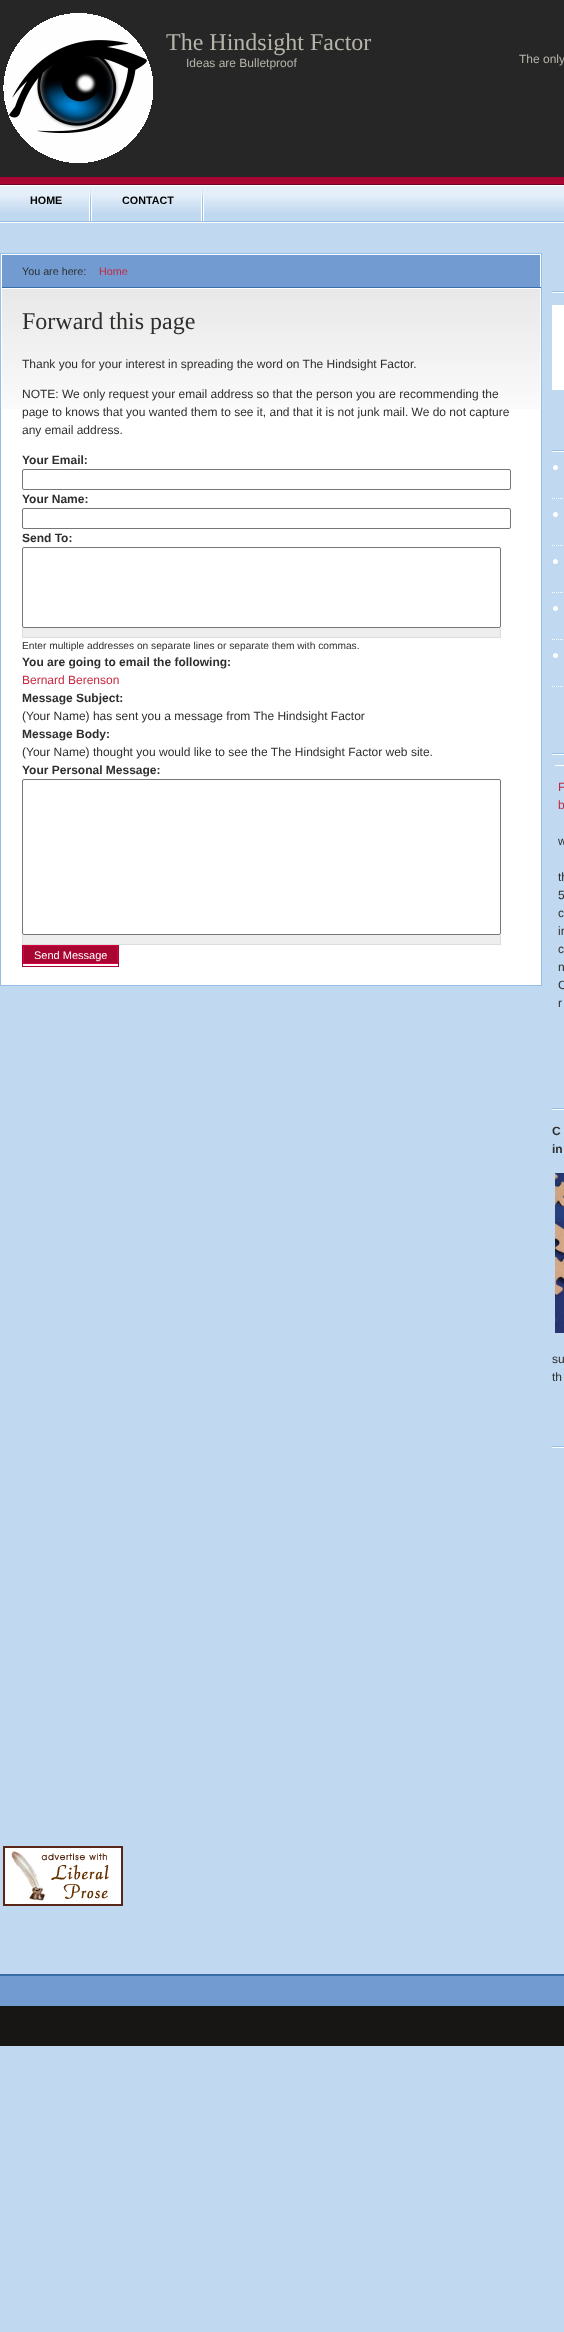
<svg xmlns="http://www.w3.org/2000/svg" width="564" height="2332">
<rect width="100%" height="100%" fill="#c0d8f0"/>
<rect width="564" height="177" fill="#272626"/>
<image x="3" y="13" width="150" height="150" href="media/1.png"/>
<text x="166" y="50" style="font-family:Liberation Serif;font-size:24px;fill:#b5b4aa">The Hindsight Factor</text>
<text x="186" y="67" style="font-family:Liberation Sans;font-size:12px;fill:#b5b4aa">Ideas are Bulletproof</text>
<text x="519" y="63" style="font-family:Liberation Sans;font-size:12px;fill:#b5b4aa">The only</text>
<rect y="177" width="564" height="7" fill="#a90532"/>
<image x="0" y="184" width="564" height="38" href="media/2.png"/>
<image x="89" y="187" width="3" height="34" href="media/3.png"/>
<text x="30" y="204" style="font-family:Liberation Sans;font-size:10.75px;font-weight:bold;fill:#000">HOME</text>
<image x="201" y="187" width="3" height="34" href="media/3.png"/>
<text x="122" y="204" style="font-family:Liberation Sans;font-size:10.75px;font-weight:bold;fill:#000">CONTACT</text>
<rect y="222" width="564" height="1" fill="#fff"/>
<rect x="0.5" y="253.5" width="541" height="732" fill="none" stroke="#96bfe6"/>
<rect x="2" y="255" width="538" height="32" fill="#719bd1"/>
<rect x="1" y="254" width="540" height="1" fill="#fff"/>
<rect x="540" y="254" width="1" height="34" fill="#fff"/>
<rect x="1" y="287" width="540" height="1" fill="#386da8"/>
<rect x="1" y="254" width="1" height="34" fill="#fff"/>
<text x="22" y="275" style="font-family:Liberation Sans;font-size:10.75px;fill:#2e2f2d">You are here:</text>
<text x="99" y="275" style="font-family:Liberation Sans;font-size:10.75px;fill:#c72840">Home</text>
<rect x="2" y="409" width="538" height="575" fill="#fff"/>
<image x="2" y="289" width="538" height="120" href="media/4.png"/>
<rect x="1.5" y="288.5" width="539" height="696" fill="none" stroke="#fff"/>
<text x="22" y="329" style="font-family:Liberation Serif;font-size:24px;fill:#2e2f2d">Forward this page</text>
<text x="22" y="368" style="font-family:Liberation Sans;font-size:12px;fill:#2e2f2d">Thank you for your interest in spreading the word on The Hindsight Factor.</text>
<text x="22" y="398" style="font-family:Liberation Sans;font-size:12px;fill:#2e2f2d">NOTE: We only request your email address so that the person you are recommending the</text>
<text x="22" y="416" style="font-family:Liberation Sans;font-size:12px;fill:#2e2f2d">page to knows that you wanted them to see it, and that it is not junk mail. We do not capture</text>
<text x="22" y="434" style="font-family:Liberation Sans;font-size:12px;fill:#2e2f2d">any email address.</text>
<text x="22" y="464" style="font-family:Liberation Sans;font-size:12px;font-weight:bold;fill:#2e2f2d">Your Email:</text>
<rect x="22.5" y="469.5" width="488" height="20" rx="1.5" fill="none" stroke="#767676"/>
<text x="22" y="503" style="font-family:Liberation Sans;font-size:12px;font-weight:bold;fill:#2e2f2d">Your Name:</text>
<rect x="22.5" y="508.5" width="488" height="20" rx="1.5" fill="none" stroke="#767676"/>
<text x="22" y="542" style="font-family:Liberation Sans;font-size:12px;font-weight:bold;fill:#2e2f2d">Send To:</text>
<rect x="22.5" y="547.5" width="478" height="80" rx="1.5" fill="none" stroke="#767676"/>
<rect x="23" y="628" width="477" height="9" fill="#eee"/>
<rect x="500" y="628" width="1" height="10" fill="#ddd"/>
<rect x="22" y="637" width="479" height="1" fill="#ddd"/>
<rect x="22" y="628" width="1" height="10" fill="#ddd"/>
<text x="22" y="649" style="font-family:Liberation Sans;font-size:10.2px;fill:#2e2f2d">Enter multiple addresses on separate lines or separate them with commas.</text>
<text x="22" y="666" style="font-family:Liberation Sans;font-size:12px;font-weight:bold;fill:#2e2f2d">You are going to email the following:</text>
<text x="22" y="684" style="font-family:Liberation Sans;font-size:12px;fill:#c72840">Bernard Berenson</text>
<text x="22" y="702" style="font-family:Liberation Sans;font-size:12px;font-weight:bold;fill:#2e2f2d">Message Subject:</text>
<text x="22" y="720" style="font-family:Liberation Sans;font-size:12px;fill:#2e2f2d">(Your Name) has sent you a message from The Hindsight Factor</text>
<text x="22" y="738" style="font-family:Liberation Sans;font-size:12px;font-weight:bold;fill:#2e2f2d">Message Body:</text>
<text x="22" y="756" style="font-family:Liberation Sans;font-size:12px;fill:#2e2f2d">(Your Name) thought you would like to see the The Hindsight Factor web site.</text>
<text x="22" y="774" style="font-family:Liberation Sans;font-size:12px;font-weight:bold;fill:#2e2f2d">Your Personal Message:</text>
<rect x="22.5" y="779.5" width="478" height="155" rx="1.5" fill="none" stroke="#767676"/>
<rect x="22.5" y="943.5" width="96" height="23" fill="none" stroke="#a90532"/>
<rect x="23" y="935" width="477" height="9" fill="#eee"/>
<rect x="500" y="935" width="1" height="10" fill="#ddd"/>
<rect x="22" y="944" width="479" height="1" fill="#ddd"/>
<rect x="22" y="935" width="1" height="10" fill="#ddd"/>
<rect x="23.5" y="945.5" width="94" height="18" fill="#a90532" stroke="#d8023f"/>
<text x="34" y="959" style="font-family:Liberation Sans;font-size:11px;fill:#fff">Send Message</text>
<rect x="552" y="292" width="12" height="1" fill="#fff"/>
<rect x="552" y="291" width="12" height="1" fill="#96bfe6"/>
<rect x="552" y="305" width="12" height="85" fill="#fff"/>
<rect x="552" y="451" width="12" height="1" fill="#fff"/>
<rect x="552" y="450" width="12" height="1" fill="#96bfe6"/>
<image x="553" y="465" width="5" height="5" href="media/5.png"/>
<path d="M552 498.5h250" fill="none" stroke="#fff" stroke-dasharray="1 1"/>
<image x="553" y="512" width="5" height="5" href="media/5.png"/>
<path d="M552 545.5h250" fill="none" stroke="#fff" stroke-dasharray="1 1"/>
<image x="553" y="559" width="5" height="5" href="media/5.png"/>
<path d="M552 592.5h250" fill="none" stroke="#fff" stroke-dasharray="1 1"/>
<image x="553" y="606" width="5" height="5" href="media/5.png"/>
<path d="M552 639.5h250" fill="none" stroke="#fff" stroke-dasharray="1 1"/>
<image x="553" y="653" width="5" height="5" href="media/5.png"/>
<path d="M552 686.5h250" fill="none" stroke="#fff" stroke-dasharray="1 1"/>
<rect x="552" y="754" width="12" height="1" fill="#fff"/>
<rect x="552" y="753" width="12" height="1" fill="#96bfe6"/>
<rect x="555" y="765" width="9" height="1" fill="#fff"/>
<text x="558" y="791" style="font-family:Liberation Sans;font-size:12px;fill:#c72840">F</text>
<text x="558" y="809" style="font-family:Liberation Sans;font-size:12px;fill:#c72840">b</text>
<text x="558" y="845" style="font-family:Liberation Sans;font-size:12px;fill:#2e2f2d">w</text>
<text x="558" y="881" style="font-family:Liberation Sans;font-size:12px;fill:#2e2f2d">th</text>
<text x="558" y="899" style="font-family:Liberation Sans;font-size:12px;fill:#2e2f2d">5</text>
<text x="558" y="917" style="font-family:Liberation Sans;font-size:12px;fill:#2e2f2d">c</text>
<text x="558" y="935" style="font-family:Liberation Sans;font-size:12px;fill:#2e2f2d">in</text>
<text x="558" y="953" style="font-family:Liberation Sans;font-size:12px;fill:#2e2f2d">c</text>
<text x="558" y="971" style="font-family:Liberation Sans;font-size:12px;fill:#2e2f2d">n</text>
<text x="558" y="989" style="font-family:Liberation Sans;font-size:12px;fill:#2e2f2d">C</text>
<text x="558" y="1007" style="font-family:Liberation Sans;font-size:12px;fill:#2e2f2d">r</text>
<rect x="552" y="1109" width="12" height="1" fill="#fff"/>
<rect x="552" y="1108" width="12" height="1" fill="#96bfe6"/>
<text x="552" y="1135" style="font-family:Liberation Sans;font-size:12px;font-weight:bold;fill:#2e2f2d">C</text>
<text x="552" y="1153" style="font-family:Liberation Sans;font-size:12px;font-weight:bold;fill:#2e2f2d">in</text>
<image x="555" y="1173" width="9" height="160" href="media/6.png"/>
<text x="552" y="1363" style="font-family:Liberation Sans;font-size:12px;fill:#2e2f2d">su</text>
<text x="552" y="1381" style="font-family:Liberation Sans;font-size:12px;fill:#2e2f2d">th</text>
<rect x="552" y="1447" width="12" height="1" fill="#fff"/>
<rect x="552" y="1446" width="12" height="1" fill="#96bfe6"/>
<image x="3" y="1846" width="120" height="60" href="media/7.png"/>
<rect y="1976" width="564" height="30" fill="#719bd1"/>
<rect y="1974" width="564" height="2" fill="#386da8"/>
<rect y="2006" width="564" height="40" fill="#171615"/>
</svg>
